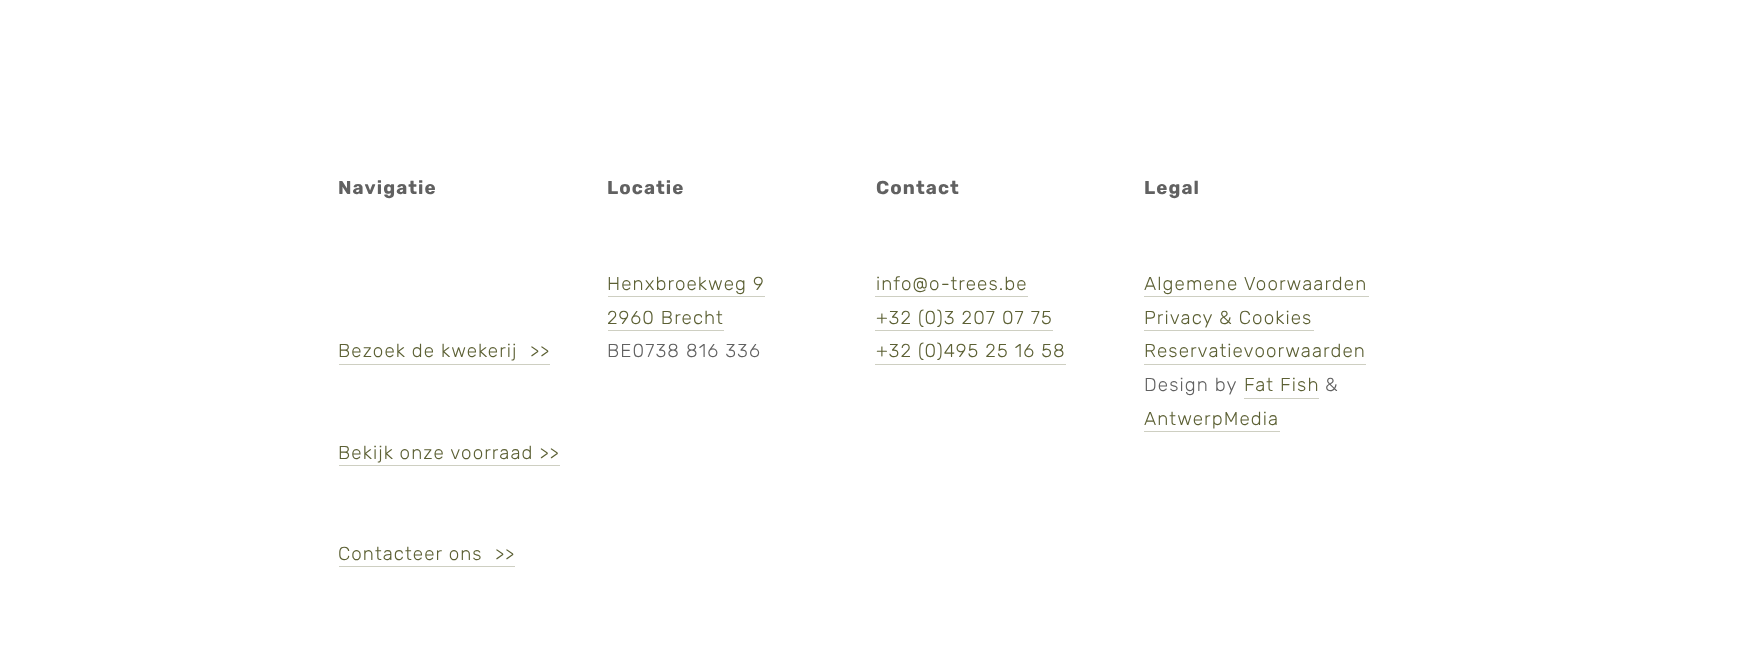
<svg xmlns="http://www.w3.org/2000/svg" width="1737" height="667">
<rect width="100%" height="100%" fill="#fff"/>
<text x="338" y="194" style="font-family:Rubik;font-size:18.75px;font-weight:bold;letter-spacing:1.1px;fill:#616161">Navigatie</text>
<text x="607" y="194" style="font-family:Rubik;font-size:18.75px;font-weight:bold;letter-spacing:1.1px;fill:#616161">Locatie</text>
<text x="876" y="194" style="font-family:Rubik;font-size:18.75px;font-weight:bold;letter-spacing:1.1px;fill:#616161">Contact</text>
<text x="1144" y="194" style="font-family:Rubik;font-size:18.75px;font-weight:bold;letter-spacing:1.1px;fill:#616161">Legal</text>
<text x="338" y="357" style="font-family:Rubik;font-size:18.75px;font-weight:300;letter-spacing:1.1px;fill:#5c6034">Bezoek de kwekerij</text>
<rect x="339" y="364" width="211" height="1" fill="#cecfc2"/>
<text x="530" y="357" style="font-family:Rubik;font-size:18.75px;font-weight:300;letter-spacing:1.1px;fill:#5c6034">&gt;&gt;</text>
<text x="338" y="459" style="font-family:Rubik;font-size:18.75px;font-weight:300;letter-spacing:1.1px;fill:#5c6034">Bekijk onze voorraad &gt;&gt;</text>
<rect x="339" y="465" width="221" height="1" fill="#cecfc2"/>
<text x="338" y="560" style="font-family:Rubik;font-size:18.75px;font-weight:300;letter-spacing:1.1px;fill:#5c6034">Contacteer ons</text>
<rect x="339" y="566" width="176" height="1" fill="#cecfc2"/>
<text x="495" y="560" style="font-family:Rubik;font-size:18.75px;font-weight:300;letter-spacing:1.1px;fill:#5c6034">&gt;&gt;</text>
<text x="607" y="290" style="font-family:Rubik;font-size:18.75px;font-weight:300;letter-spacing:1.1px;fill:#5c6034">Henxbroekweg 9</text>
<rect x="608" y="296" width="157" height="1" fill="#cecfc2"/>
<text x="607" y="324" style="font-family:Rubik;font-size:18.75px;font-weight:300;letter-spacing:1.1px;fill:#5c6034">2960 Brecht</text>
<rect x="608" y="330" width="116" height="1" fill="#cecfc2"/>
<text x="607" y="357" style="font-family:Rubik;font-size:18.75px;font-weight:300;letter-spacing:1.1px;fill:#616161">BE0738 816 336</text>
<text x="876" y="290" style="font-family:Rubik;font-size:18.75px;font-weight:300;letter-spacing:1.1px;fill:#5c6034">info@o-trees.be</text>
<rect x="875" y="296" width="153" height="1" fill="#cecfc2"/>
<text x="876" y="324" style="font-family:Rubik;font-size:18.75px;font-weight:300;letter-spacing:1.1px;fill:#5c6034">+32 (0)3 207 07 75</text>
<rect x="875" y="330" width="178" height="1" fill="#cecfc2"/>
<text x="876" y="357" style="font-family:Rubik;font-size:18.75px;font-weight:300;letter-spacing:1.1px;fill:#5c6034">+32 (0)495 25 16 58</text>
<rect x="875" y="364" width="191" height="1" fill="#cecfc2"/>
<text x="1144" y="290" style="font-family:Rubik;font-size:18.75px;font-weight:300;letter-spacing:1.1px;fill:#5c6034">Algemene Voorwaarden</text>
<rect x="1144" y="296" width="225" height="1" fill="#cecfc2"/>
<text x="1144" y="324" style="font-family:Rubik;font-size:18.75px;font-weight:300;letter-spacing:1.1px;fill:#5c6034">Privacy &amp; Cookies</text>
<rect x="1144" y="330" width="170" height="1" fill="#cecfc2"/>
<text x="1144" y="357" style="font-family:Rubik;font-size:18.75px;font-weight:300;letter-spacing:1.1px;fill:#5c6034">Reservatievoorwaarden</text>
<rect x="1144" y="364" width="222" height="1" fill="#cecfc2"/>
<text x="1144" y="391" style="font-family:Rubik;font-size:18.75px;font-weight:300;letter-spacing:1.1px;fill:#616161">Design by</text>
<text x="1244" y="391" style="font-family:Rubik;font-size:18.75px;font-weight:300;letter-spacing:1.1px;fill:#5c6034">Fat Fish</text>
<rect x="1244" y="398" width="75" height="1" fill="#cecfc2"/>
<text x="1325" y="391" style="font-family:Rubik;font-size:18.75px;font-weight:300;letter-spacing:1.1px;fill:#616161">&amp;</text>
<text x="1144" y="425" style="font-family:Rubik;font-size:18.75px;font-weight:300;letter-spacing:1.1px;fill:#5c6034">AntwerpMedia</text>
<rect x="1144" y="431" width="136" height="1" fill="#cecfc2"/>
</svg>
